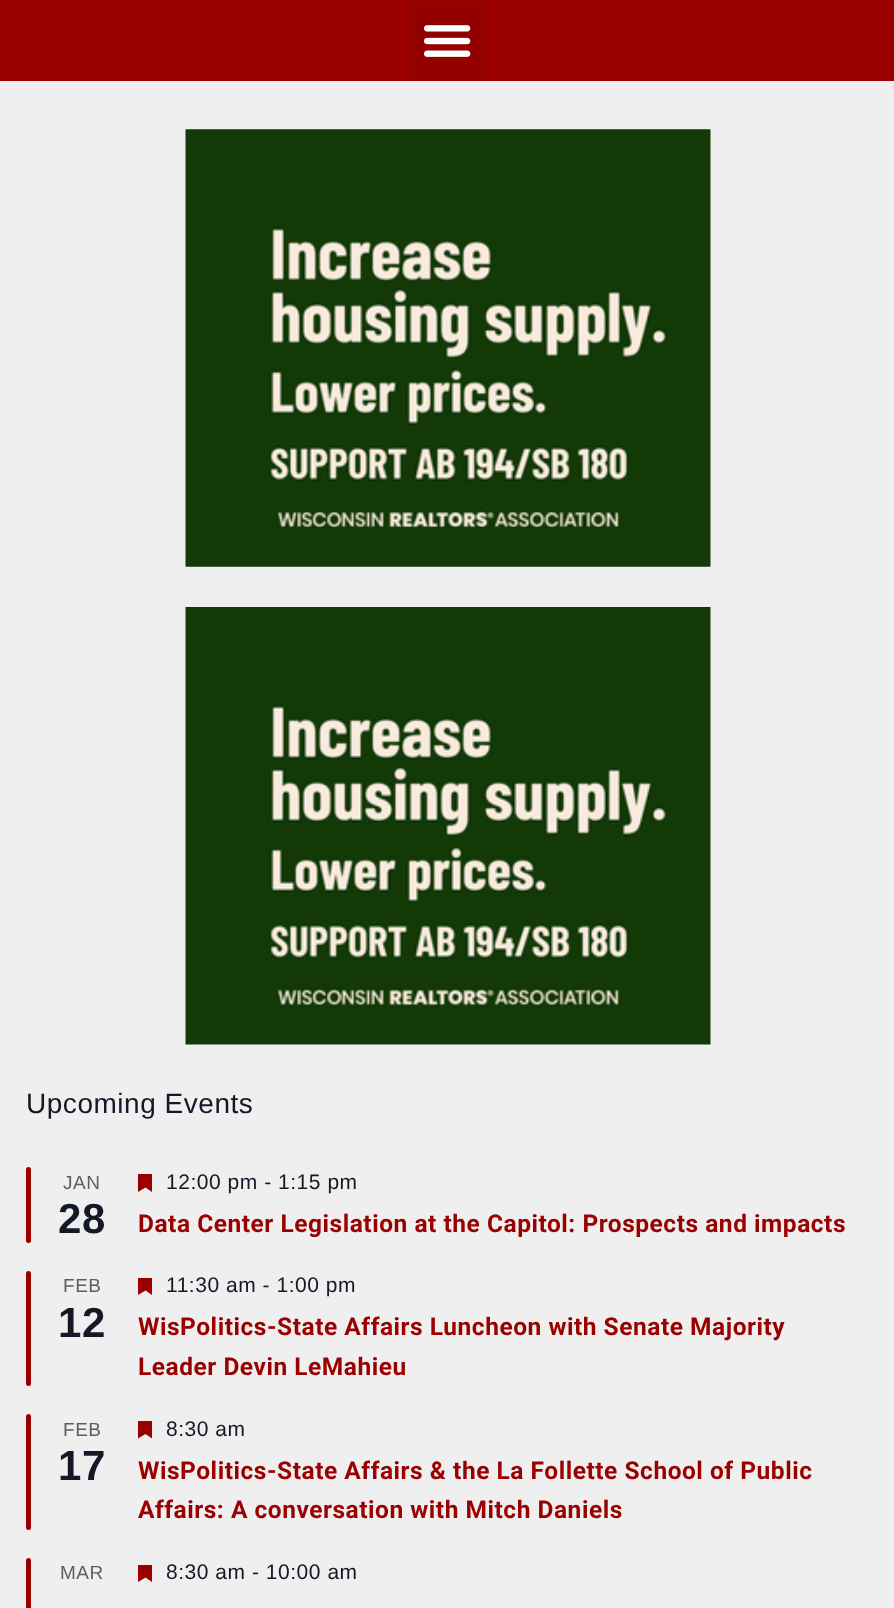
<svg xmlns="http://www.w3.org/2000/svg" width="894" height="1608">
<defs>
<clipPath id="clip1"><rect x="138" y="1278" width="14" height="17"/></clipPath>
<clipPath id="clip2"><rect x="138" y="1565" width="14" height="17"/></clipPath>
</defs>
<rect width="100%" height="100%" fill="#efefef"/>
<rect width="894" height="81" fill="#9b0000"/>
<rect x="410" y="2" width="75" height="77" fill="#930000"/>
<image x="423" y="25" width="48" height="32" href="media/1.png"/>
<image x="185" y="129" width="526" height="438" href="media/2.png"/>
<image x="185" y="607" width="526" height="438" href="media/3.png"/>
<text x="26" y="1113" style="font-family:Liberation Sans;font-size:28px;letter-spacing:0.53px;fill:#141827">Upcoming Events</text>
<rect x="26" y="1167" width="5" height="76" rx="2.5" fill="#9b0000"/>
<text x="63" y="1189" style="font-family:Liberation Sans;font-size:19px;letter-spacing:0.53px;fill:#5d5d5d">JAN</text>
<text x="58" y="1233" style="font-family:Liberation Sans;font-size:42px;font-weight:bold;letter-spacing:0.53px;fill:#141827">28</text>
<path d="M138 1174h14v18l-6.5-4.5l-7.5 4.5z" fill="#9b0000" fill-rule="evenodd"/>
<text x="166" y="1189" style="font-family:Liberation Sans;font-size:21px;letter-spacing:0.53px;fill:#141827">12:00 pm - 1:15 pm</text>
<text x="138" y="1232" style="font-family:Roboto;font-size:24.5px;font-weight:bold;letter-spacing:0.53px;fill:#9b0000">Data Center Legislation at the Capitol: Prospects and impacts</text>
<rect x="26" y="1271" width="5" height="115" rx="2.5" fill="#9b0000"/>
<text x="63" y="1292" style="font-family:Liberation Sans;font-size:19px;letter-spacing:0.53px;fill:#5d5d5d">FEB</text>
<text x="58" y="1337" style="font-family:Liberation Sans;font-size:42px;font-weight:bold;letter-spacing:0.53px;fill:#141827">12</text>
<g clip-path="url(#clip1)">
<path d="M138 1277.5h14v17.5l-6.5-4.5l-7.5 4.5z" fill="#9b0000" fill-rule="evenodd"/>
</g>
<text x="166" y="1292" style="font-family:Liberation Sans;font-size:21px;letter-spacing:0.53px;fill:#141827">11:30 am - 1:00 pm</text>
<text x="138" y="1335" style="font-family:Roboto;font-size:24.5px;font-weight:bold;letter-spacing:0.53px;fill:#9b0000">WisPolitics-State Affairs Luncheon with Senate Majority</text>
<text x="138" y="1375" style="font-family:Roboto;font-size:24.5px;font-weight:bold;letter-spacing:0.53px;fill:#9b0000">Leader Devin LeMahieu</text>
<rect x="26" y="1414" width="5" height="116" rx="2.5" fill="#9b0000"/>
<text x="63" y="1436" style="font-family:Liberation Sans;font-size:19px;letter-spacing:0.53px;fill:#5d5d5d">FEB</text>
<text x="58" y="1480" style="font-family:Liberation Sans;font-size:42px;font-weight:bold;letter-spacing:0.53px;fill:#141827">17</text>
<path d="M138 1421h14v17.5l-6.5-4.5l-7.5 4.5z" fill="#9b0000" fill-rule="evenodd"/>
<text x="166" y="1436" style="font-family:Liberation Sans;font-size:21px;letter-spacing:0.53px;fill:#141827">8:30 am</text>
<text x="138" y="1479" style="font-family:Roboto;font-size:24.5px;font-weight:bold;letter-spacing:0.53px;fill:#9b0000">WisPolitics-State Affairs &amp; the La Follette School of Public</text>
<text x="138" y="1518" style="font-family:Roboto;font-size:24.5px;font-weight:bold;letter-spacing:0.53px;fill:#9b0000">Affairs: A conversation with Mitch Daniels</text>
<rect x="26" y="1558" width="5" height="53" rx="2.5" fill="#9b0000"/>
<text x="60" y="1579" style="font-family:Liberation Sans;font-size:19px;letter-spacing:0.53px;fill:#5d5d5d">MAR</text>
<g clip-path="url(#clip2)">
<path d="M138 1564.5h14v17.5l-6.5-4.5l-7.5 4.5z" fill="#9b0000" fill-rule="evenodd"/>
</g>
<text x="166" y="1579" style="font-family:Liberation Sans;font-size:21px;letter-spacing:0.53px;fill:#141827">8:30 am - 10:00 am</text>
</svg>
